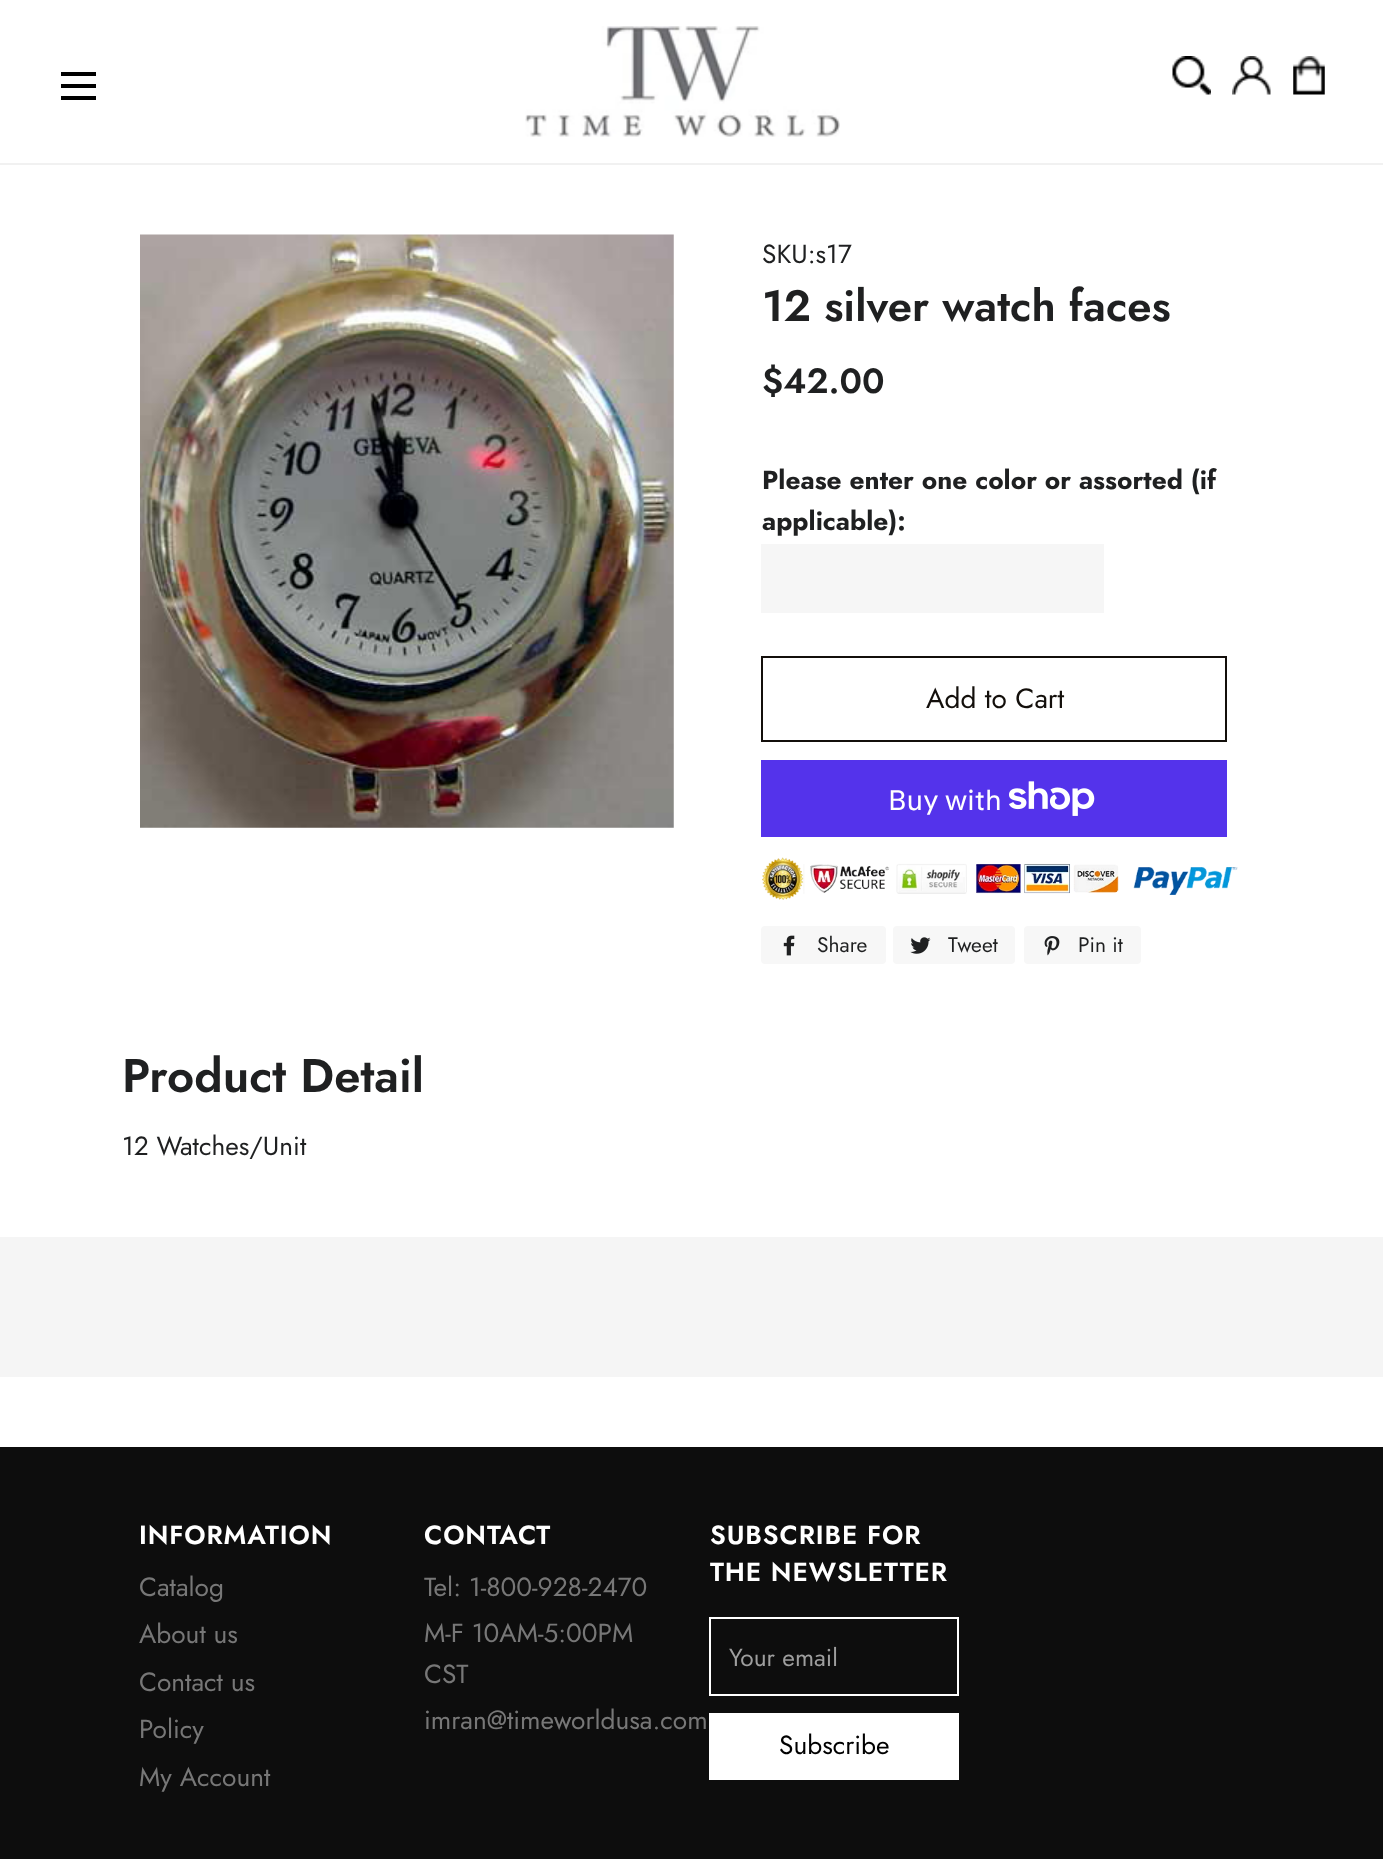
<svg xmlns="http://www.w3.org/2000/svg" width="1383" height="1859">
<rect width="100%" height="100%" fill="#fff"/>
<rect y="163" width="1383" height="2" fill="#f1f1f1"/>
<rect x="61" y="72" width="35" height="4" fill="#000"/>
<rect x="61" y="84" width="35" height="4" fill="#000"/>
<rect x="61" y="96" width="35" height="4" fill="#000"/>
<image x="525" y="26" width="315" height="111" href="media/1.png"/>
<image x="1172" y="56" width="39" height="39" href="media/2.png"/>
<image x="1232" y="56" width="39" height="39" href="media/3.png"/>
<image x="1293" y="56" width="32" height="39" href="media/4.png"/>
<image x="140" y="234" width="534" height="594" href="media/5.png"/>
<text x="762" y="263" style="font-family:Jost;font-size:26.25px;fill:#1f2021">SKU:s17</text>
<text x="762" y="321" style="font-family:Jost;font-size:43.75px;font-weight:600;fill:#1f2021">12 silver watch faces</text>
<text x="762" y="393" style="font-family:Jost;font-size:35px;font-weight:600;fill:#1f2021">$42.00</text>
<text x="762" y="489" style="font-family:Jost;font-size:26.25px;font-weight:bold;fill:#1f2021">Please enter one color or assorted (if</text>
<text x="762" y="530" style="font-family:Jost;font-size:26.25px;font-weight:bold;fill:#1f2021">applicable):</text>
<rect x="761" y="544" width="343" height="69" fill="#f6f6f6"/>
<rect x="762" y="657" width="464" height="84" fill="none" stroke="#130f0b" stroke-width="2"/>
<text x="926" y="708" style="font-family:Jost;font-size:28px;fill:#130f0b">Add to Cart</text>
<rect x="761" y="760" width="466" height="77" fill="#5433eb"/>
<text x="888" y="810" style="font-family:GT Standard;font-size:28px;fill:#fff">Buy with</text>
<image x="1009" y="781" width="86" height="35" href="media/6.png"/>
<image x="762" y="857" width="476" height="43" href="media/7.png"/>
<rect x="761" y="926" width="125" height="38" rx="4" fill="#f7f7f7"/>
<image x="783" y="935" width="12" height="21" href="media/8.png"/>
<text x="817" y="952" style="font-family:Jost;font-size:21px;fill:#1f2021">Share</text>
<rect x="893" y="926" width="122" height="38" rx="4" fill="#f7f7f7"/>
<image x="910" y="937" width="21" height="17" href="media/9.png"/>
<text x="948" y="952" style="font-family:Jost;font-size:21px;fill:#1f2021">Tweet</text>
<rect x="1024" y="926" width="117" height="38" rx="4" fill="#f7f7f7"/>
<image x="1044" y="936" width="16" height="20" href="media/10.png"/>
<text x="1078" y="952" style="font-family:Jost;font-size:21px;fill:#1f2021">Pin it</text>
<text x="122" y="1092" style="font-family:Jost;font-size:47.25px;font-weight:600;fill:#1f2021">Product Detail</text>
<text x="122" y="1155" style="font-family:Jost;font-size:26.25px;fill:#1f2021">12 Watches/Unit</text>
<rect y="1237" width="1383" height="140" fill="#f5f5f5"/>
<rect y="1447" width="1383" height="412" fill="#0d0d0d"/>
<text x="139" y="1544" style="font-family:Jost;font-size:26.25px;font-weight:600;letter-spacing:0.9px;fill:#fff">INFORMATION</text>
<text x="139" y="1596" style="font-family:Jost;font-size:26.25px;fill:#777">Catalog</text>
<text x="139" y="1643" style="font-family:Jost;font-size:26.25px;fill:#777">About us</text>
<text x="139" y="1691" style="font-family:Jost;font-size:26.25px;fill:#777">Contact us</text>
<text x="139" y="1738" style="font-family:Jost;font-size:26.25px;fill:#777">Policy</text>
<text x="139" y="1786" style="font-family:Jost;font-size:26.25px;fill:#777">My Account</text>
<text x="424" y="1544" style="font-family:Jost;font-size:26.25px;font-weight:600;letter-spacing:0.9px;fill:#fff">CONTACT</text>
<text x="424" y="1596" style="font-family:Jost;font-size:26.25px;fill:#777">Tel: 1-800-928-2470</text>
<text x="424" y="1642" style="font-family:Jost;font-size:26.25px;fill:#777">M-F 10AM-5:00PM</text>
<text x="424" y="1683" style="font-family:Jost;font-size:26.25px;fill:#777">CST</text>
<text x="424" y="1729" style="font-family:Jost;font-size:26.25px;fill:#777">imran@timeworldusa.com</text>
<text x="710" y="1544" style="font-family:Jost;font-size:26.25px;font-weight:600;letter-spacing:0.9px;fill:#fff">SUBSCRIBE FOR</text>
<text x="710" y="1581" style="font-family:Jost;font-size:26.25px;font-weight:600;letter-spacing:0.9px;fill:#fff">THE NEWSLETTER</text>
<rect x="710" y="1618" width="248" height="77" fill="none" stroke="#fff" stroke-width="2"/>
<text x="729" y="1666" style="font-family:Jost;font-size:24.5px;fill:#9e9e9e">Your email</text>
<rect x="709" y="1713" width="250" height="67" fill="#fff"/>
<text x="779" y="1754" style="font-family:Jost;font-size:26.25px;fill:#000">Subscribe</text>
</svg>
